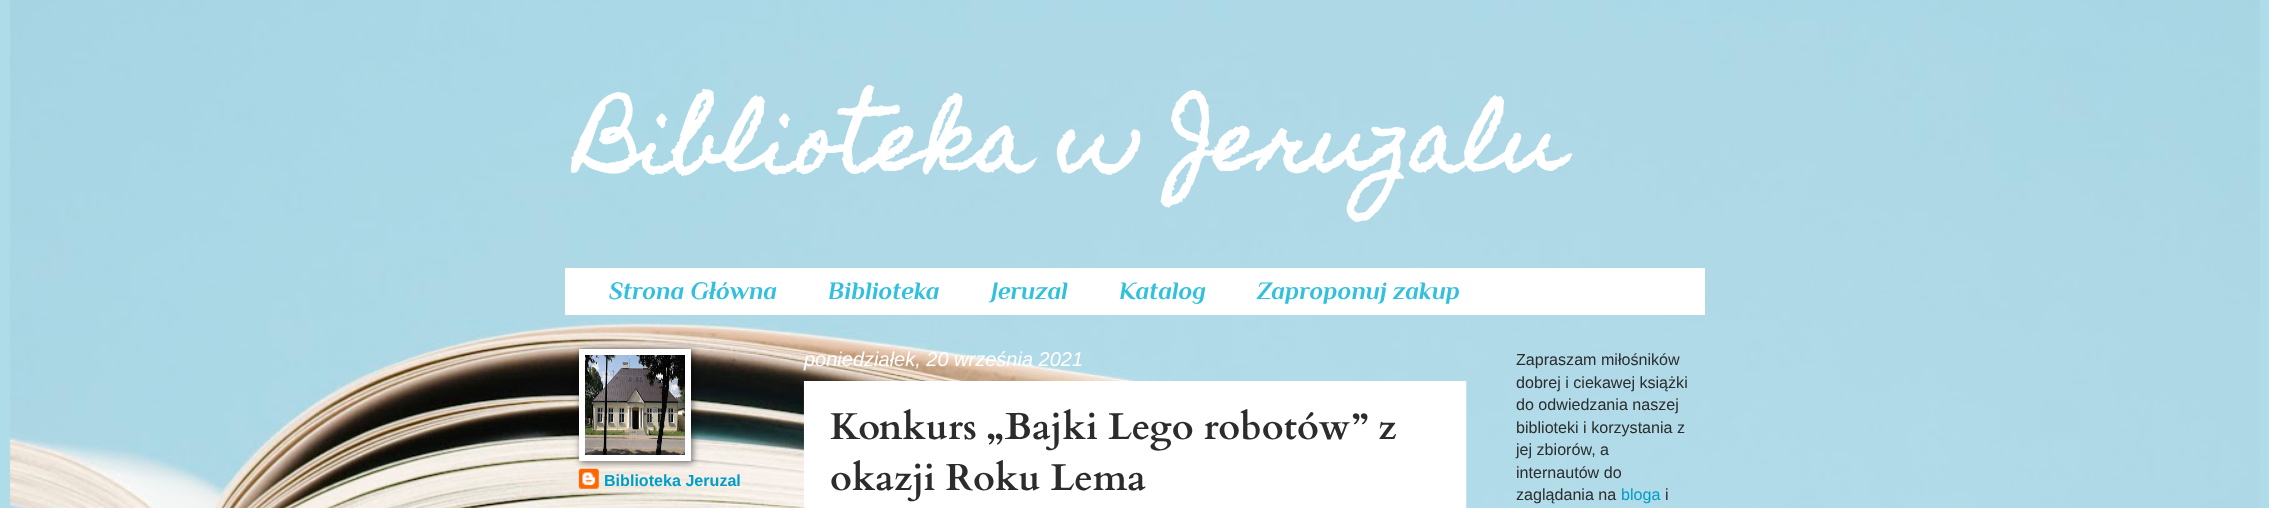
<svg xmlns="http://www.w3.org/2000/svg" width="2269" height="508">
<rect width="100%" height="100%" fill="#aedce9"/>
<image x="9" y="0" width="2251" height="508" href="media/1.png"/>
<rect x="10" y="38" width="2250" height="151" fill="#aedce9"/>
<image x="10" y="38" width="2250" height="151" href="media/2.png"/>
<text x="579" y="170" style="font-family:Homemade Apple;font-size:81.25px;font-weight:bold;fill:#fff">Biblioteka w Jeruzalu</text>
<rect x="565" y="268" width="1140" height="47" fill="#fff"/>
<text x="609" y="299" style="font-family:Philosopher;font-size:25px;font-weight:bold;font-style:italic;fill:#32c0dd">Strona G</text>
<text x="709" y="299" style="font-family:Liberation Serif;font-size:25px;font-weight:bold;font-style:italic;fill:#32c0dd">ł</text>
<text x="716" y="299" style="font-family:Philosopher;font-size:25px;font-weight:bold;font-style:italic;fill:#32c0dd">ówna</text>
<text x="828" y="299" style="font-family:Philosopher;font-size:25px;font-weight:bold;font-style:italic;fill:#32c0dd">Biblioteka</text>
<text x="991" y="299" style="font-family:Philosopher;font-size:25px;font-weight:bold;font-style:italic;fill:#32c0dd">Jeruzal</text>
<text x="1119" y="299" style="font-family:Philosopher;font-size:25px;font-weight:bold;font-style:italic;fill:#32c0dd">Katalog</text>
<text x="1257" y="299" style="font-family:Philosopher;font-size:25px;font-weight:bold;font-style:italic;fill:#32c0dd">Zaproponuj zakup</text>
<image x="578" y="468" width="21" height="21" href="media/4.png"/>
<rect x="580" y="350" width="113" height="113" fill="#00000080" filter="blur(3px)"/>
<rect x="579" y="349" width="112" height="112" fill="#fff"/>
<image x="585" y="355" width="100" height="100" href="media/3.png"/>
<text x="604" y="486" style="font-family:Liberation Sans;font-size:16.1px;font-weight:bold;fill:#009dc9">Biblioteka Jeruzal</text>
<text x="804" y="366" style="font-family:Liberation Sans;font-size:20px;font-style:italic;fill:#fff">poniedziałek, 20 września 2021</text>
<rect x="804" y="381" width="662" height="127" fill="#fff"/>
<rect x="1466" y="381" width="1" height="127" fill="#c0e2ed"/>
<path d="M1465.5 381v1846.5" fill="none" stroke="#fff" stroke-width="1.2" stroke-dasharray="1.25 1.25"/>
<path d="M804.5 381v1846.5" fill="none" stroke="#fff" stroke-width="1.2" stroke-dasharray="1.25 1.25"/>
<text x="830" y="439" style="font-family:Cardo;font-size:37.5px;font-weight:bold;fill:#2c2c2c">Konkurs „Bajki Lego robotów” z</text>
<text x="830" y="490" style="font-family:Cardo;font-size:37.5px;font-weight:bold;fill:#2c2c2c">okazji Roku Lema</text>
<text x="1516" y="365" style="font-family:Liberation Sans;font-size:16.1px;fill:#2c2c2c">Zapraszam miłośników</text>
<text x="1516" y="388" style="font-family:Liberation Sans;font-size:16.1px;fill:#2c2c2c">dobrej i ciekawej książki</text>
<text x="1516" y="410" style="font-family:Liberation Sans;font-size:16.1px;fill:#2c2c2c">do odwiedzania naszej</text>
<text x="1516" y="433" style="font-family:Liberation Sans;font-size:16.1px;fill:#2c2c2c">biblioteki i korzystania z</text>
<text x="1516" y="455" style="font-family:Liberation Sans;font-size:16.1px;fill:#2c2c2c">jej zbiorów, a</text>
<text x="1516" y="478" style="font-family:Liberation Sans;font-size:16.1px;fill:#2c2c2c">internautów do</text>
<text x="1516" y="500" style="font-family:Liberation Sans;font-size:16.1px;fill:#2c2c2c">zaglądania na</text>
<text x="1621" y="500" style="font-family:Liberation Sans;font-size:16.1px;fill:#009dc9">bloga</text>
<text x="1665" y="500" style="font-family:Liberation Sans;font-size:16.1px;fill:#2c2c2c">i</text>
</svg>
